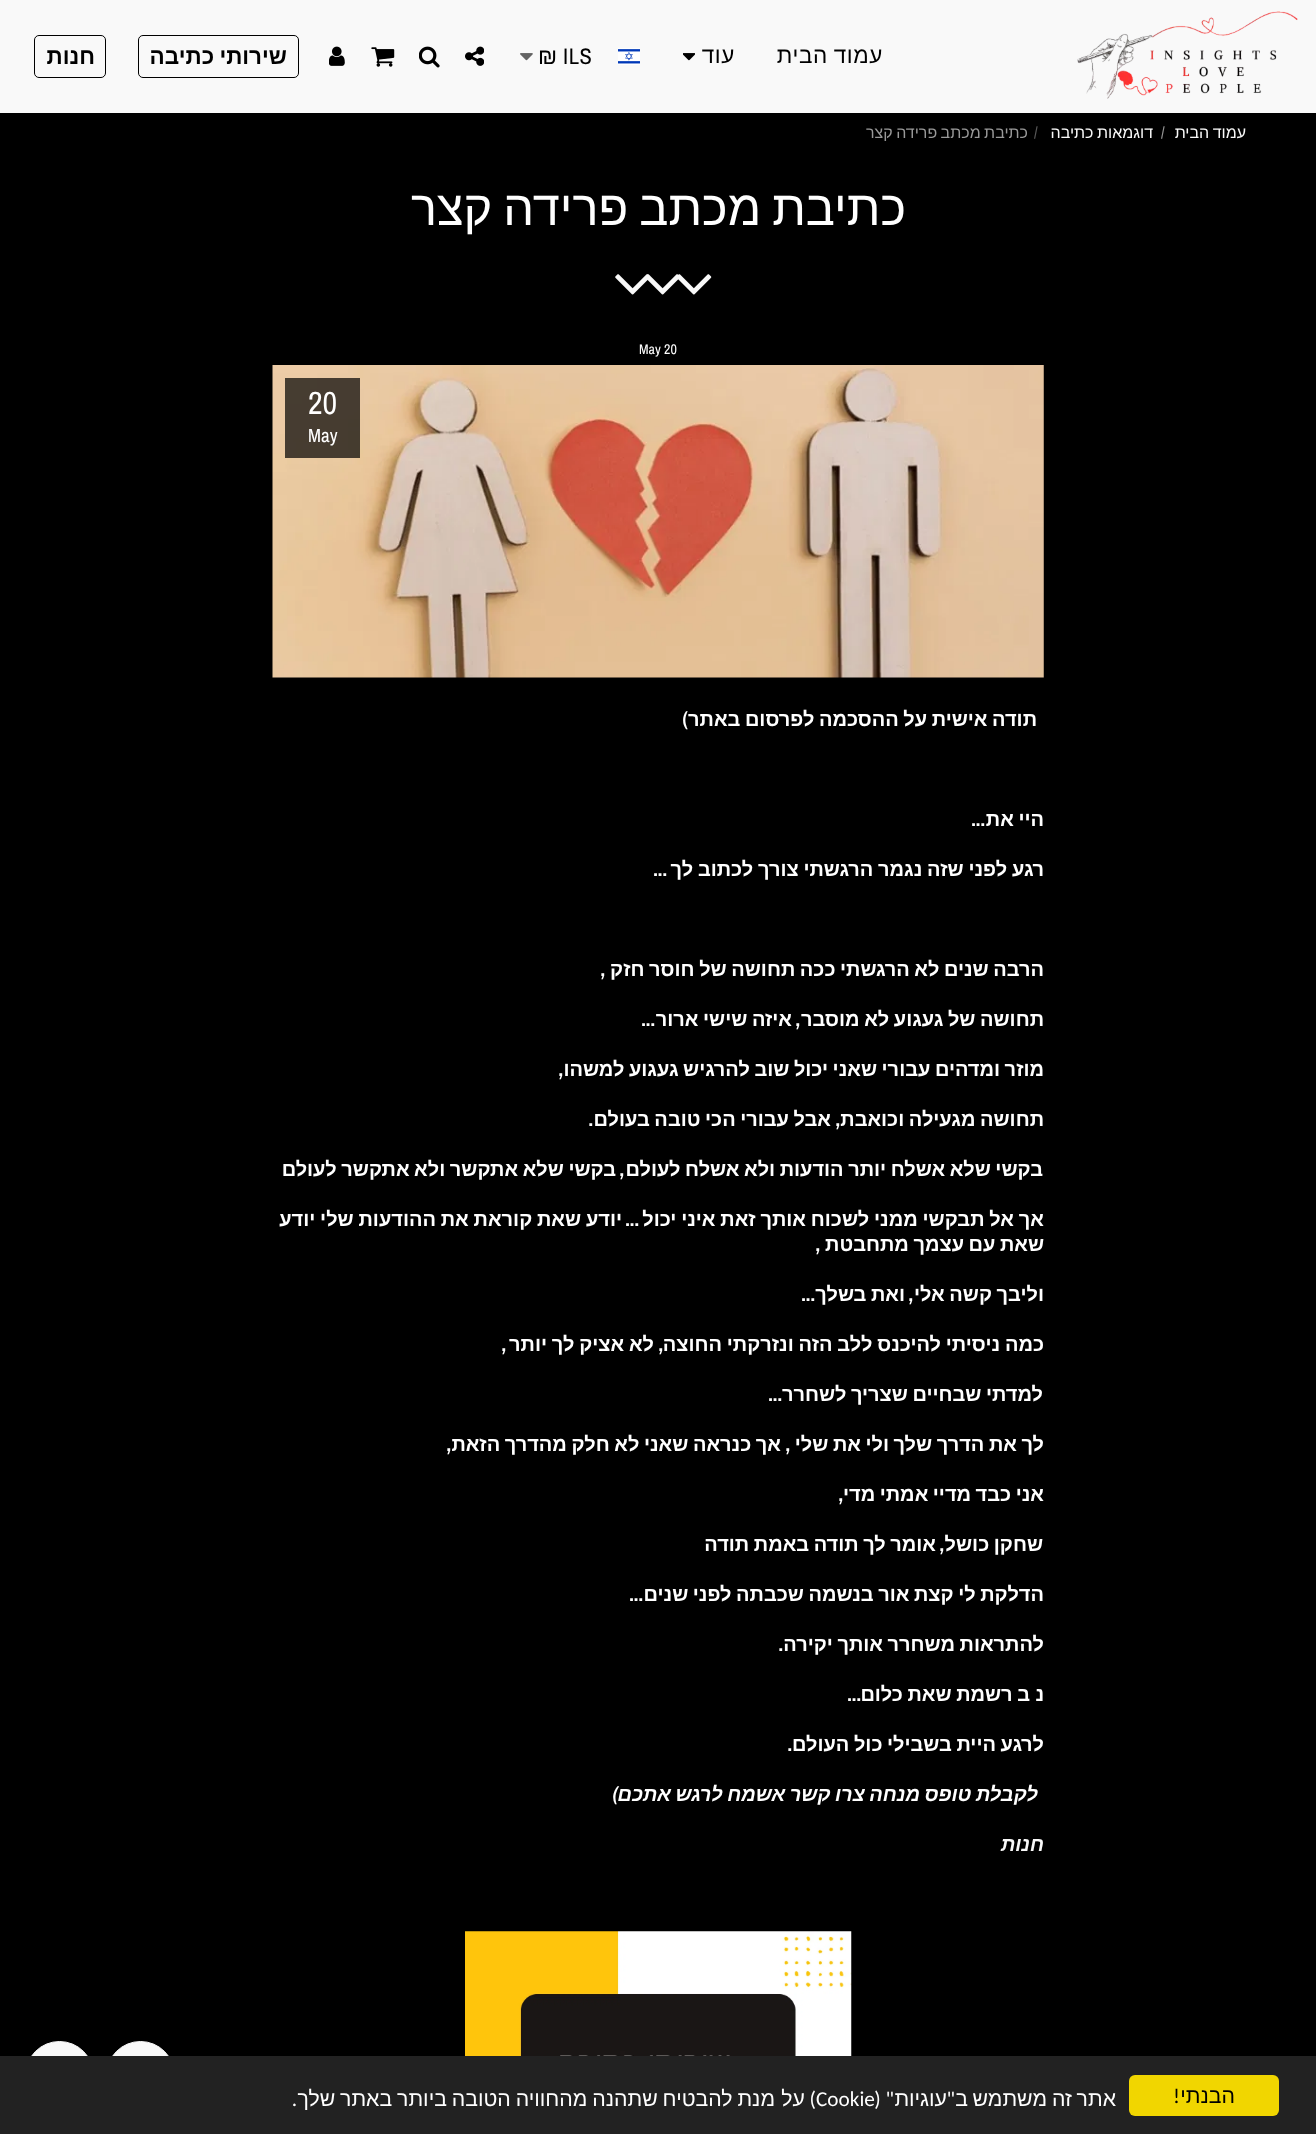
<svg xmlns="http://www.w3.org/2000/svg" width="1316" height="2134">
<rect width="100%" height="100%" fill="#000"/>
<rect width="1316" height="113" fill="#f9f9f9"/>
<image x="1077" y="11" width="221" height="88" href="media/1.png"/>
<text x="883" y="63" word-spacing="-1" style="font-family:Liberation Sans;font-size:22.5px;letter-spacing:0.6px;direction:rtl;fill:#000">עמוד הבית</text>
<text x="735" y="63" style="font-family:Liberation Sans;font-size:22.5px;letter-spacing:0.6px;direction:rtl;fill:#000">עוד</text>
<image x="683" y="53" width="12" height="8" href="media/2.png"/>
<image x="618" y="48" width="22" height="17" href="media/3.png"/>
<text x="563" y="64" style="font-family:Archivo Narrow;font-size:22.5px;letter-spacing:0.6px;fill:#000">ILS</text>
<text x="538" y="64" style="font-family:Liberation Sans;font-size:22.5px;letter-spacing:0.6px;fill:#000">₪</text>
<image x="520" y="53" width="13" height="8" href="media/4.png"/>
<image x="465" y="46" width="19" height="20" href="media/5.png"/>
<image x="419" y="46" width="21" height="22" href="media/6.png"/>
<image x="371" y="47" width="24" height="20" href="media/7.png"/>
<image x="329" y="46" width="16" height="20" href="media/8.png"/>
<rect x="138.5" y="35.5" width="160" height="42" rx="4.5" fill="none" stroke="#000"/>
<text x="287" y="64" word-spacing="-1" style="font-family:Liberation Sans;font-size:22.5px;font-weight:bold;direction:rtl;fill:#000">שירותי כתיבה</text>
<rect x="34.5" y="35.5" width="71" height="42" rx="4.5" fill="none" stroke="#000"/>
<text x="95" y="64" style="font-family:Liberation Sans;font-size:22.5px;font-weight:bold;direction:rtl;fill:#000">חנות</text>
<text x="1246" y="138" word-spacing="-1" style="font-family:Liberation Sans;font-size:16px;direction:rtl;fill:#f9f9f9">עמוד הבית</text>
<text x="1161" y="138" style="font-family:Archivo Narrow;font-size:16px;fill:#999">/</text>
<text x="1153" y="138" word-spacing="-1" style="font-family:Liberation Sans;font-size:16px;direction:rtl;fill:#f9f9f9">דוגמאות כתיבה</text>
<text x="1034" y="138" style="font-family:Archivo Narrow;font-size:16px;fill:#5c5c5c">/</text>
<text x="1028" y="138" word-spacing="-1" style="font-family:Liberation Sans;font-size:16px;direction:rtl;fill:#999">כתיבת מכתב פרידה קצר</text>
<text x="906" y="225" word-spacing="-2.5" style="font-family:Liberation Sans;font-size:48.75px;direction:rtl;fill:#fff">כתיבת מכתב פרידה קצר</text>
<image x="678" y="274" width="34" height="21" href="media/9.png"/>
<image x="647" y="274" width="32" height="21" href="media/10.png"/>
<image x="615" y="274" width="34" height="21" href="media/11.png"/>
<text x="664" y="354" style="font-family:Archivo Narrow;font-size:14px;fill:#fff">20</text>
<text x="639" y="354" style="font-family:Archivo Narrow;font-size:14px;fill:#fff">May</text>
<image x="272" y="365" width="772" height="313" href="media/12.png"/>
<rect x="285" y="378" width="75" height="80" fill="#000000b3"/>
<text x="308" y="414" style="font-family:Archivo Narrow;font-size:32px;fill:#fff">20</text>
<text x="308" y="442" style="font-family:Archivo Narrow;font-size:19px;fill:#fff">May</text>
<text x="1037" y="726" word-spacing="-1" style="font-family:Liberation Sans;font-size:20px;font-weight:bold;direction:rtl;fill:#fff">תודה אישית על ההסכמה לפרסום באתר</text>
<text x="688" y="726" style="font-family:Archivo Narrow;font-size:20px;font-weight:bold;direction:rtl;fill:#fff">)</text>
<text x="1044" y="826" word-spacing="-1" style="font-family:Liberation Sans;font-size:20px;font-weight:bold;direction:rtl;fill:#fff">היי את</text>
<text x="985" y="826" style="font-family:Archivo Narrow;font-size:20px;font-weight:bold;direction:rtl;fill:#fff">...</text>
<text x="1044" y="876" word-spacing="-0.75" style="font-family:Liberation Sans;font-size:20px;font-weight:bold;direction:rtl;fill:#fff">רגע לפני שזה נגמר הרגשתי צורך לכתוב לך</text>
<text x="667" y="876" style="font-family:Archivo Narrow;font-size:20px;font-weight:bold;direction:rtl;fill:#fff">...</text>
<text x="1044" y="976" word-spacing="-1" style="font-family:Liberation Sans;font-size:20px;font-weight:bold;direction:rtl;fill:#fff">הרבה שנים לא הרגשתי ככה תחושה של חוסר חזק</text>
<text x="605" y="976" style="font-family:Archivo Narrow;font-size:20px;font-weight:bold;direction:rtl;fill:#fff">,</text>
<text x="1044" y="1026" word-spacing="-1" style="font-family:Liberation Sans;font-size:20px;font-weight:bold;direction:rtl;fill:#fff">תחושה של געגוע לא מוסבר</text>
<text x="800" y="1026" style="font-family:Archivo Narrow;font-size:20px;font-weight:bold;direction:rtl;fill:#fff">,</text>
<text x="792" y="1026" word-spacing="-1" style="font-family:Liberation Sans;font-size:20px;font-weight:bold;direction:rtl;fill:#fff">איזה שישי ארור</text>
<text x="655" y="1026" style="font-family:Archivo Narrow;font-size:20px;font-weight:bold;direction:rtl;fill:#fff">...</text>
<text x="1044" y="1076" word-spacing="-1" style="font-family:Liberation Sans;font-size:20px;font-weight:bold;direction:rtl;fill:#fff">מוזר ומדהים עבורי שאני יכול שוב להרגיש געגוע למשהו</text>
<text x="563" y="1076" style="font-family:Archivo Narrow;font-size:20px;font-weight:bold;direction:rtl;fill:#fff">,</text>
<text x="1044" y="1126" word-spacing="-1" style="font-family:Liberation Sans;font-size:20px;font-weight:bold;direction:rtl;fill:#fff">תחושה מגעילה וכואבת</text>
<text x="840" y="1126" style="font-family:Archivo Narrow;font-size:20px;font-weight:bold;direction:rtl;fill:#fff">,</text>
<text x="831" y="1126" word-spacing="-1" style="font-family:Liberation Sans;font-size:20px;font-weight:bold;direction:rtl;fill:#fff">אבל עבורי הכי טובה בעולם</text>
<text x="593" y="1126" style="font-family:Archivo Narrow;font-size:20px;font-weight:bold;direction:rtl;fill:#fff">.</text>
<text x="1043" y="1176" word-spacing="-1" style="font-family:Liberation Sans;font-size:20px;font-weight:bold;direction:rtl;fill:#fff">בקשי שלא אשלח יותר הודעות ולא אשלח לעולם</text>
<text x="616" y="1176" word-spacing="-1" style="font-family:Liberation Sans;font-size:20px;font-weight:bold;direction:rtl;fill:#fff">בקשי שלא אתקשר ולא אתקשר לעולם</text>
<text x="624" y="1176" style="font-family:Archivo Narrow;font-size:20px;font-weight:bold;direction:rtl;fill:#fff">,</text>
<text x="1044" y="1226" word-spacing="-0.75" style="font-family:Liberation Sans;font-size:20px;font-weight:bold;direction:rtl;fill:#fff">אך אל תבקשי ממני לשכוח אותך זאת איני יכול</text>
<text x="639" y="1226" style="font-family:Archivo Narrow;font-size:20px;font-weight:bold;direction:rtl;fill:#fff">...</text>
<text x="622" y="1226" word-spacing="-0.75" style="font-family:Liberation Sans;font-size:20px;font-weight:bold;direction:rtl;fill:#fff">יודע שאת קוראת את ההודעות שלי יודע</text>
<text x="1044" y="1251" word-spacing="-1" style="font-family:Liberation Sans;font-size:20px;font-weight:bold;direction:rtl;fill:#fff">שאת עם עצמך מתחבטת</text>
<text x="820" y="1251" style="font-family:Archivo Narrow;font-size:20px;font-weight:bold;direction:rtl;fill:#fff">,</text>
<text x="1044" y="1301" word-spacing="-1" style="font-family:Liberation Sans;font-size:20px;font-weight:bold;direction:rtl;fill:#fff">וליבך קשה אלי</text>
<text x="913" y="1301" style="font-family:Archivo Narrow;font-size:20px;font-weight:bold;direction:rtl;fill:#fff">,</text>
<text x="905" y="1301" word-spacing="-1" style="font-family:Liberation Sans;font-size:20px;font-weight:bold;direction:rtl;fill:#fff">ואת בשלך</text>
<text x="815" y="1301" style="font-family:Archivo Narrow;font-size:20px;font-weight:bold;direction:rtl;fill:#fff">...</text>
<text x="1044" y="1351" word-spacing="-0.75" style="font-family:Liberation Sans;font-size:20px;font-weight:bold;direction:rtl;fill:#fff">כמה ניסיתי להיכנס ללב הזה ונזרקתי החוצה</text>
<text x="663" y="1351" style="font-family:Archivo Narrow;font-size:20px;font-weight:bold;direction:rtl;fill:#fff">,</text>
<text x="654" y="1351" word-spacing="-0.75" style="font-family:Liberation Sans;font-size:20px;font-weight:bold;direction:rtl;fill:#fff">לא אציק לך יותר</text>
<text x="506" y="1351" style="font-family:Archivo Narrow;font-size:20px;font-weight:bold;direction:rtl;fill:#fff">,</text>
<text x="1043" y="1401" word-spacing="-1" style="font-family:Liberation Sans;font-size:20px;font-weight:bold;direction:rtl;fill:#fff">למדתי שבחיים שצריך לשחרר</text>
<text x="782" y="1401" style="font-family:Archivo Narrow;font-size:20px;font-weight:bold;direction:rtl;fill:#fff">...</text>
<text x="1044" y="1451" word-spacing="-1" style="font-family:Liberation Sans;font-size:20px;font-weight:bold;direction:rtl;fill:#fff">לך את הדרך שלך ולי את שלי</text>
<text x="781" y="1451" word-spacing="-1" style="font-family:Liberation Sans;font-size:20px;font-weight:bold;direction:rtl;fill:#fff">אך כנראה שאני לא חלק מהדרך הזאת</text>
<text x="790" y="1451" style="font-family:Archivo Narrow;font-size:20px;font-weight:bold;direction:rtl;fill:#fff">,</text>
<text x="451" y="1451" style="font-family:Archivo Narrow;font-size:20px;font-weight:bold;direction:rtl;fill:#fff">,</text>
<text x="1044" y="1501" word-spacing="-1" style="font-family:Liberation Sans;font-size:20px;font-weight:bold;direction:rtl;fill:#fff">אני כבד מדיי אמתי מדי</text>
<text x="843" y="1501" style="font-family:Archivo Narrow;font-size:20px;font-weight:bold;direction:rtl;fill:#fff">,</text>
<text x="1043" y="1551" word-spacing="-1" style="font-family:Liberation Sans;font-size:20px;font-weight:bold;direction:rtl;fill:#fff">שחקן כושל</text>
<text x="944" y="1551" style="font-family:Archivo Narrow;font-size:20px;font-weight:bold;direction:rtl;fill:#fff">,</text>
<text x="936" y="1551" word-spacing="-1" style="font-family:Liberation Sans;font-size:20px;font-weight:bold;direction:rtl;fill:#fff">אומר לך תודה באמת תודה</text>
<text x="1044" y="1601" word-spacing="-1" style="font-family:Liberation Sans;font-size:20px;font-weight:bold;direction:rtl;fill:#fff">הדלקת לי קצת אור בנשמה שכבתה לפני שנים</text>
<text x="643" y="1601" style="font-family:Archivo Narrow;font-size:20px;font-weight:bold;direction:rtl;fill:#fff">...</text>
<text x="1044" y="1651" style="font-family:Liberation Sans;font-size:20px;font-weight:bold;direction:rtl;fill:#fff">להתראות</text>
<text x="955" y="1651" word-spacing="-1" style="font-family:Liberation Sans;font-size:20px;font-weight:bold;direction:rtl;fill:#fff">משחרר אותך יקירה</text>
<text x="783" y="1651" style="font-family:Archivo Narrow;font-size:20px;font-weight:bold;direction:rtl;fill:#fff">.</text>
<text x="1044" y="1701" style="font-family:Liberation Sans;font-size:20px;font-weight:bold;direction:rtl;fill:#fff">נ</text>
<text x="1030" y="1701" word-spacing="-1" style="font-family:Liberation Sans;font-size:20px;font-weight:bold;direction:rtl;fill:#fff">ב רשמת שאת כלום</text>
<text x="861" y="1701" style="font-family:Archivo Narrow;font-size:20px;font-weight:bold;direction:rtl;fill:#fff">...</text>
<text x="1044" y="1751" word-spacing="-1" style="font-family:Liberation Sans;font-size:20px;font-weight:bold;direction:rtl;fill:#fff">לרגע היית בשבילי כול העולם</text>
<text x="792" y="1751" style="font-family:Archivo Narrow;font-size:20px;font-weight:bold;direction:rtl;fill:#fff">.</text>
<text x="1038" y="1801" word-spacing="-1" style="font-family:Liberation Sans;font-size:20px;font-weight:bold;font-style:italic;direction:rtl;fill:#fff">לקבלת טופס מנחה צרו קשר אשמח לרגש אתכם</text>
<text x="618" y="1801" style="font-family:Archivo Narrow;font-size:20px;font-weight:bold;font-style:italic;direction:rtl;fill:#fff">)</text>
<text x="1044" y="1851" style="font-family:Liberation Sans;font-size:20px;font-weight:bold;font-style:italic;direction:rtl;fill:#f9f9f9">חנות</text>
<image x="465" y="1931" width="387" height="125" href="media/13.png"/>
<circle cx="140.5" cy="2075.5" r="34" fill="#f9f9f9" stroke="#f9f9f9"/>
<circle cx="59.5" cy="2075.5" r="34" fill="#f9f9f9" stroke="#f9f9f9"/>
<rect y="2056" width="1316" height="78" fill="#222"/>
<rect x="1129" y="2075" width="150" height="41" rx="6" fill="#f1d600"/>
<text x="1235" y="2103" style="font-family:Liberation Sans;font-size:21.25px;direction:rtl;fill:#000">הבנתי</text>
<text x="1180" y="2103" style="font-family:Carlito;font-size:21.25px;direction:rtl;fill:#000">!</text>
<text x="1116" y="2106" style="font-family:Liberation Sans;font-size:21.25px;direction:rtl;fill:#fff">אתר</text>
<text x="1072" y="2106" style="font-family:Liberation Sans;font-size:21.25px;direction:rtl;fill:#fff">זה</text>
<text x="1047" y="2106" style="font-family:Liberation Sans;font-size:21.25px;direction:rtl;fill:#fff">משתמש</text>
<text x="968" y="2106" style="font-family:Liberation Sans;font-size:21.25px;direction:rtl;fill:#fff">ב</text>
<text x="955" y="2106" style="font-family:Carlito;font-size:21.25px;direction:rtl;fill:#fff">"</text>
<text x="947" y="2106" style="font-family:Liberation Sans;font-size:21.25px;direction:rtl;fill:#fff">עוגיות</text>
<text x="894" y="2106" style="font-family:Carlito;font-size:21.25px;direction:rtl;fill:#fff">" (</text>
<text x="816" y="2106" style="font-family:Carlito;font-size:21.25px;fill:#fff">Cookie</text>
<text x="816" y="2106" style="font-family:Carlito;font-size:21.25px;direction:rtl;fill:#fff">)</text>
<text x="805" y="2106" style="font-family:Liberation Sans;font-size:21.25px;direction:rtl;fill:#fff">על</text>
<text x="775" y="2106" word-spacing="-1" style="font-family:Liberation Sans;font-size:21.25px;direction:rtl;fill:#fff">מנת להבטיח שתהנה מהחוויה הטובה ביותר באתר שלך</text>
<text x="297" y="2106" style="font-family:Carlito;font-size:21.25px;direction:rtl;fill:#fff">.</text>
</svg>
